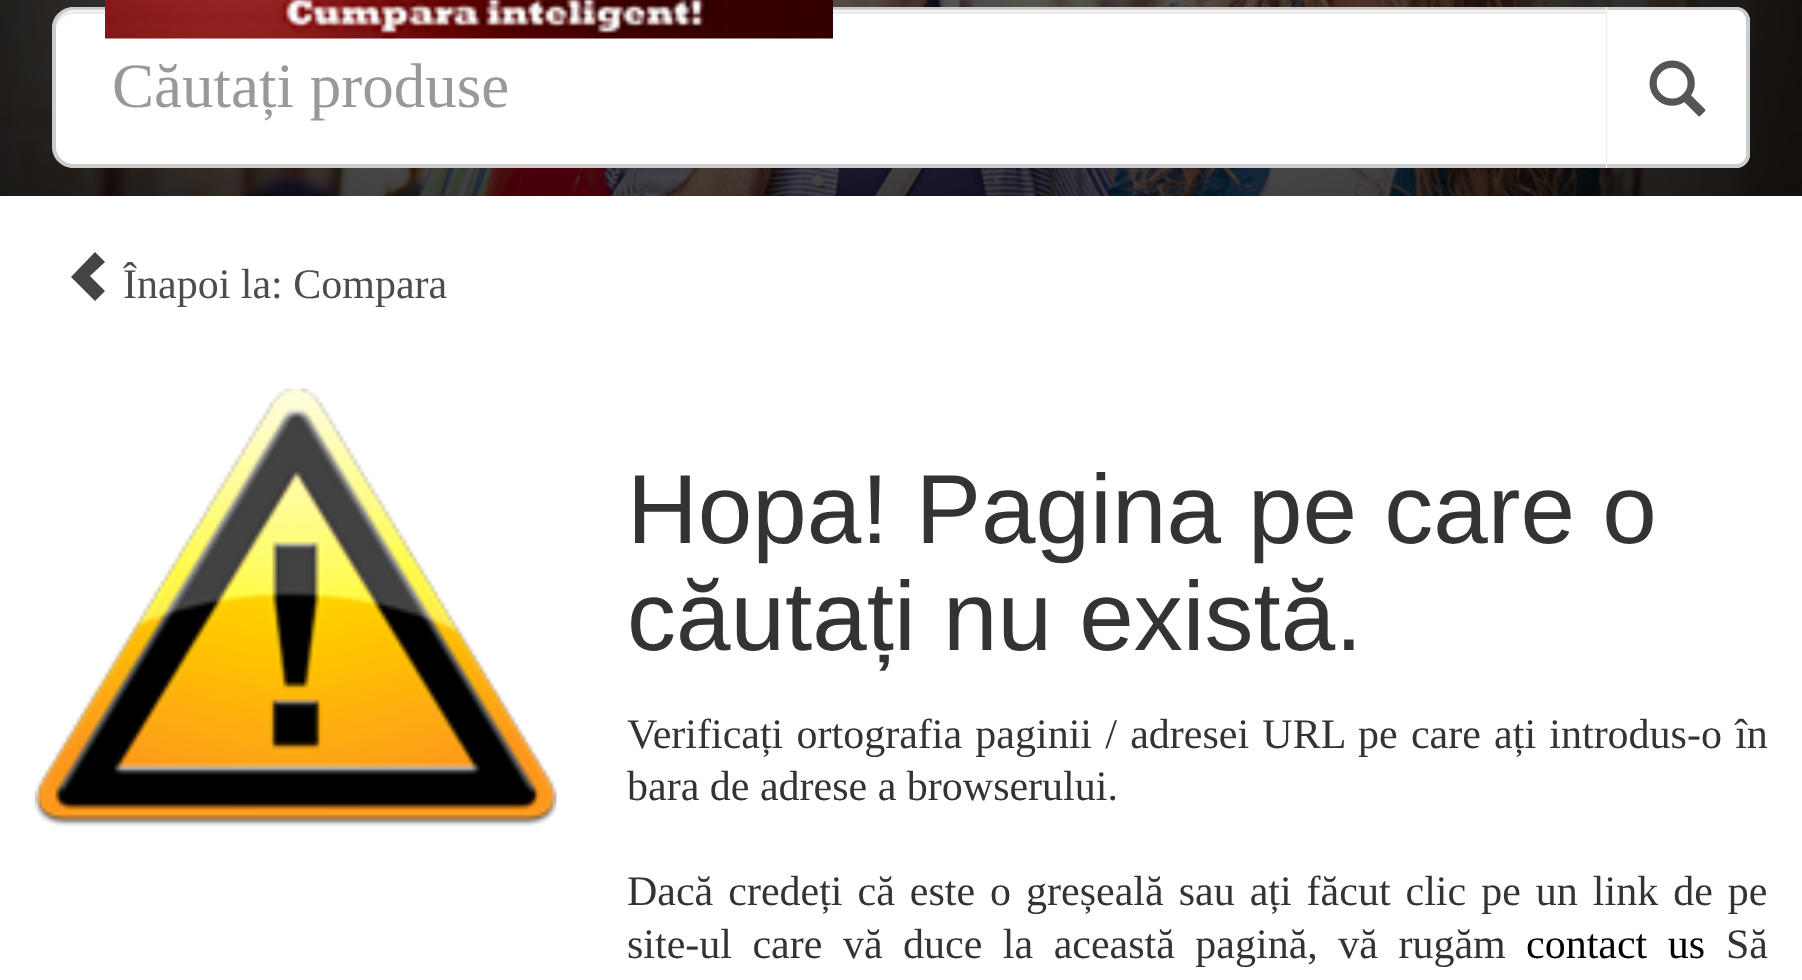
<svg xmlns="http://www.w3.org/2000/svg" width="1802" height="980">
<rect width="100%" height="100%" fill="#fff"/>
<image x="0" y="0" width="1802" height="196" href="media/1.png"/>
<path d="M1607 7h129c7.5 0 14 6.5 14 14v133c0 7.5-6.5 14-14 14h-129z" fill="#fff"/>
<path d="M1606 7h130c8 0 14 6 14 14v133c0 8-6 14-14 14h-130zm0 3h130c6 0 10 5 10 11v133c0 6-4 10-10 10h-130z" fill="#ccc" fill-rule="evenodd"/>
<path d="M74 7h1533v161h-1533c-11.5 0-21-9.5-21-21v-119c0-11.5 9.5-21 21-21z" fill="#fff"/>
<path d="M74 14h1532v151h1v-154h-1533c-13 0-18 10-18 21c0-10 8-18 18-18z" fill="#ececec"/>
<path d="M74 7h1532v161h-1532c-12 0-22-9-22-21v-119c0-12 10-21 22-21zm0 3h1532v154h-1532c-10 0-18-7-18-17v-119c0-10 8-18 18-18z" fill="#ccc" fill-rule="evenodd"/>
<image x="105" y="0" width="728" height="39" href="media/2.png"/>
<text x="112" y="107" style="font-family:Liberation Serif;font-size:63px;fill:#999">Căutați produse</text>
<image x="1649" y="60" width="57" height="57" href="media/3.png"/>
<path d="M71 277l24 24l10-10l-15-15l15-14l-10-10z" fill="#444"/>
<text x="123" y="298" style="font-family:Liberation Serif;font-size:42px;fill:#4c4c4c">Înapoi la: Compara</text>
<image x="35" y="388" width="522" height="438" href="media/4.png"/>
<text x="627" y="543" style="font-family:Liberation Sans;font-size:98px;fill:#333">Hopa! Pagina pe care o</text>
<text x="627" y="650" style="font-family:Liberation Sans;font-size:98px;fill:#333">căutați nu există.</text>
<text x="627" y="748" word-spacing="2.75" style="font-family:Liberation Serif;font-size:42px;fill:#333">Verificați ortografia paginii / adresei URL pe care ați introdus-o în</text>
<text x="627" y="800" style="font-family:Liberation Serif;font-size:42px;fill:#333">bara de adrese a browserului.</text>
<text x="627" y="905" word-spacing="4.5" style="font-family:Liberation Serif;font-size:42px;fill:#333">Dacă credeți că este o greșeală sau ați făcut clic pe un link de pe</text>
<text x="627" y="958" word-spacing="10" style="font-family:Liberation Serif;font-size:42px;fill:#333">site-ul care vă duce la această pagină, vă rugăm</text>
<text x="1526" y="958" word-spacing="10" style="font-family:Liberation Serif;font-size:42px;fill:#000">contact us</text>
<text x="1726" y="958" style="font-family:Liberation Serif;font-size:42px;fill:#333">Să</text>
</svg>
